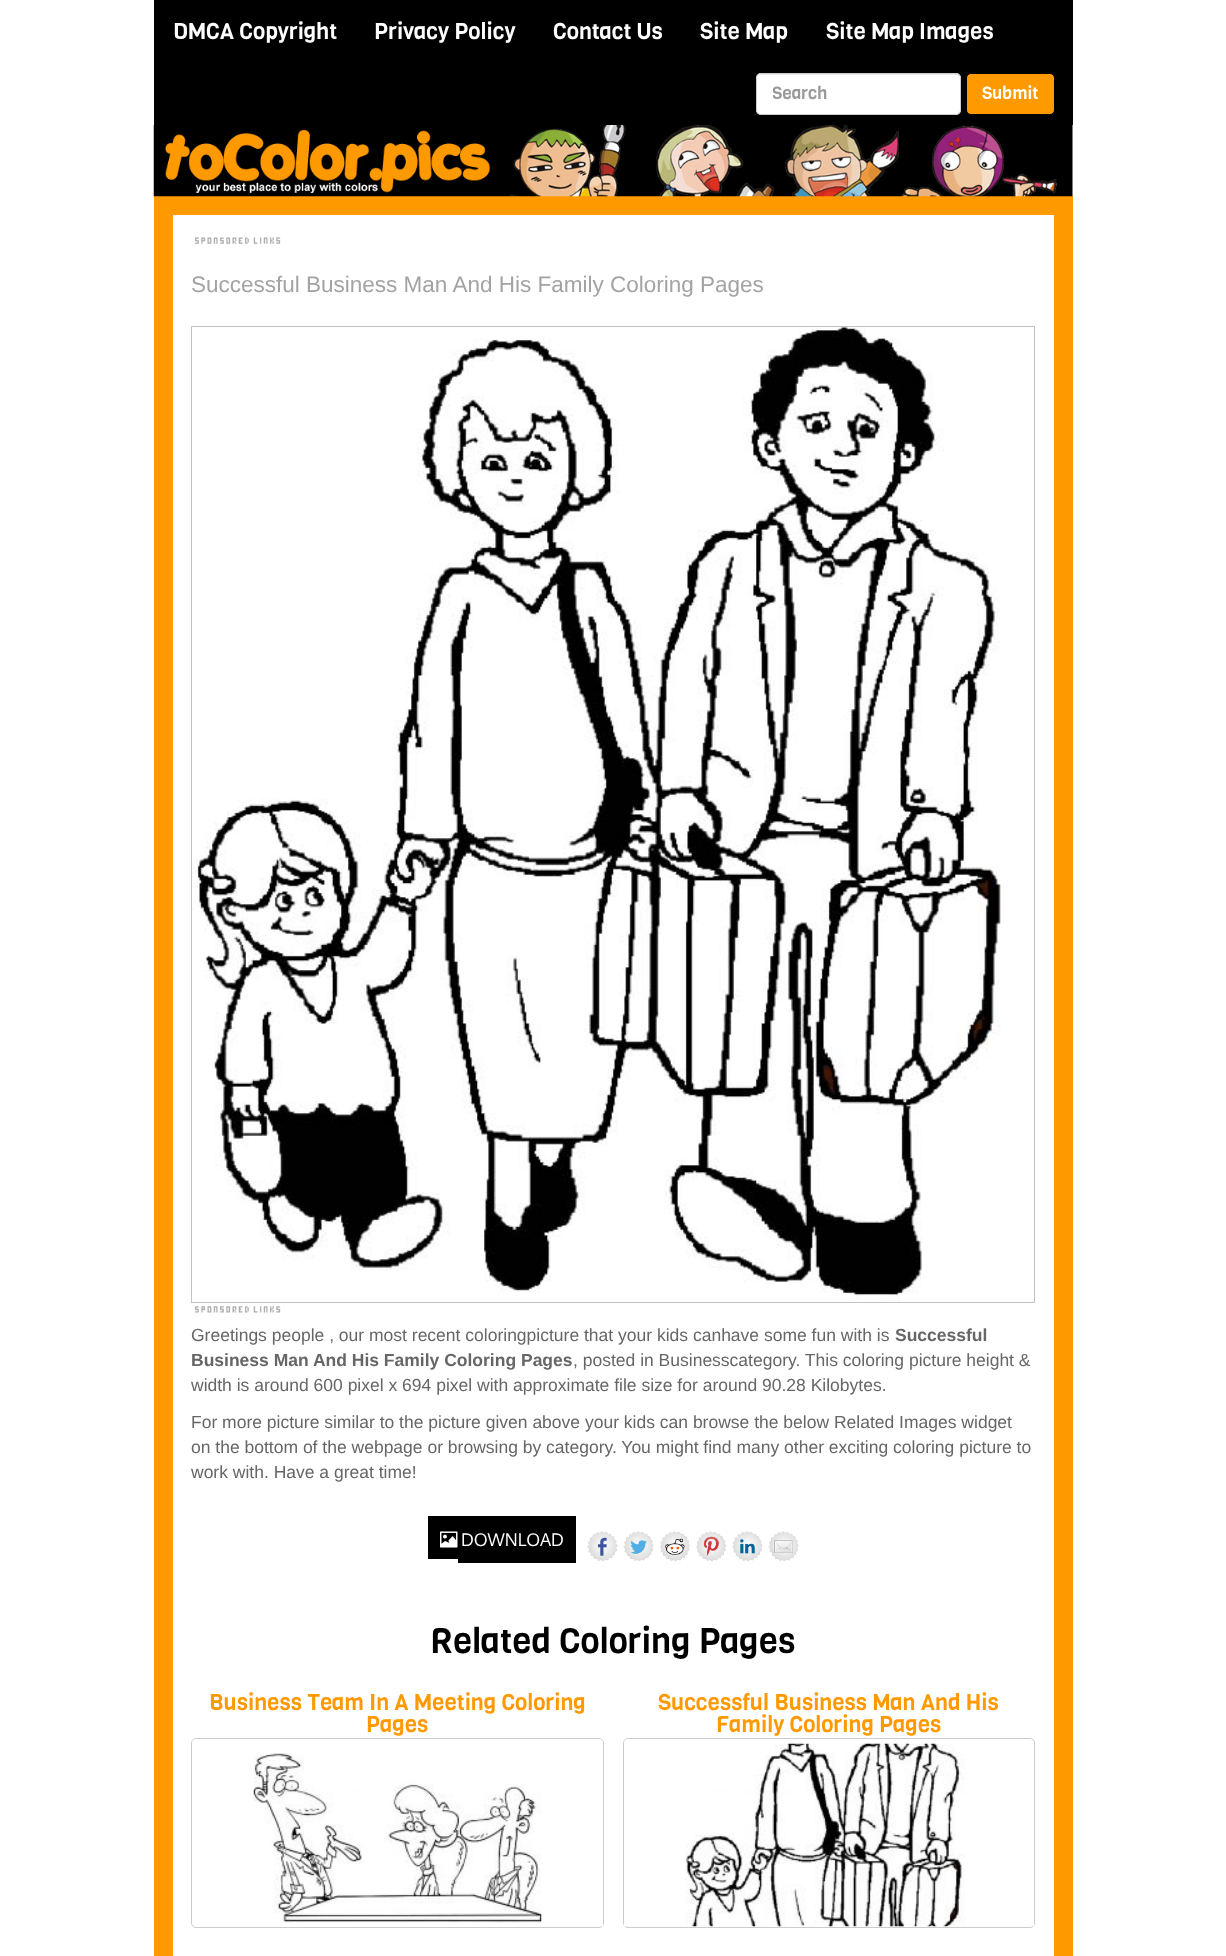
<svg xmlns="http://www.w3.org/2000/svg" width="1226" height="1956">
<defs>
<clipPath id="clip1"><rect x="773" y="83" width="172" height="23"/></clipPath>
</defs>
<rect width="100%" height="100%" fill="#fff"/>
<rect x="154" width="919" height="125" fill="#000"/>
<text x="173" y="39" style="font-family:Viga;font-size:22.5px;fill:#fff">DMCA Copyright</text>
<text x="374" y="39" style="font-family:Viga;font-size:22.5px;fill:#fff">Privacy Policy</text>
<text x="553" y="39" style="font-family:Viga;font-size:22.5px;fill:#fff">Contact Us</text>
<text x="700" y="39" style="font-family:Viga;font-size:22.5px;fill:#fff">Site Map</text>
<text x="826" y="39" style="font-family:Viga;font-size:22.5px;fill:#fff">Site Map Images</text>
<rect x="756" y="73" width="205" height="42" rx="5" fill="#fff"/>
<path d="M761 75h195c2 0 4 2 4 4v-1c0-2-2-4-4-4h-194c-2 0-4 2-4 4v1c0-2 1-4 3-4z" fill="#ececec"/>
<rect x="756.5" y="73.5" width="204" height="41" rx="4.5" fill="none" stroke="#ccc"/>
<g clip-path="url(#clip1)">
<text x="772" y="99" style="font-family:Viga;font-size:17.5px;fill:#999">Search</text>
</g>
<rect x="966.5" y="73.5" width="88" height="41" rx="4.5" fill="#f90" stroke="#000"/>
<text x="982" y="99" style="font-family:Viga;font-size:17.5px;fill:#fff">Submit</text>
<rect x="154" y="196" width="919" height="1760" fill="#f90"/>
<image x="153" y="125" width="920" height="72" href="media/1.png"/>
<rect x="173" y="215" width="881" height="1741" fill="#fff"/>
<image x="194" y="237" width="87" height="7" href="media/2.png"/>
<text x="191" y="292" style="font-family:Liberation Sans;font-size:22.5px;fill:#a3a3a3">Successful Business Man And His Family Coloring Pages</text>
<rect x="191.5" y="326.5" width="843" height="976" fill="none" stroke="#bdc3c7"/>
<image x="192" y="327" width="809" height="974" href="media/3.png"/>
<image x="194" y="1306" width="87" height="7" href="media/4.png"/>
<text x="191" y="1341" style="font-family:Liberation Sans;font-size:17.5px;fill:#666">Greetings people , our most recent coloringpicture that your kids canhave some fun with is</text>
<text x="895" y="1341" style="font-family:Liberation Sans;font-size:17.5px;font-weight:bold;fill:#666">Successful</text>
<text x="191" y="1366" style="font-family:Liberation Sans;font-size:17.5px;font-weight:bold;fill:#666">Business Man And His Family Coloring Pages</text>
<text x="573" y="1366" style="font-family:Liberation Sans;font-size:17.5px;fill:#666">, posted in Businesscategory. This coloring picture height &amp;</text>
<text x="191" y="1391" style="font-family:Liberation Sans;font-size:17.5px;fill:#666">width is around 600 pixel x 694 pixel with approximate file size for around 90.28 Kilobytes.</text>
<text x="191" y="1428" style="font-family:Liberation Sans;font-size:17.5px;fill:#666">For more picture similar to the picture given above your kids can browse the below Related Images widget</text>
<text x="191" y="1453" style="font-family:Liberation Sans;font-size:17.5px;fill:#666">on the bottom of the webpage or browsing by category. You might find many other exciting coloring picture to</text>
<text x="191" y="1478" style="font-family:Liberation Sans;font-size:17.5px;fill:#666">work with. Have a great time!</text>
<rect x="428" y="1516" width="30" height="43" fill="#000"/>
<rect x="458" y="1516" width="118" height="47" fill="#000"/>
<image x="440" y="1531" width="18" height="17" href="media/5.png"/>
<text x="461" y="1546" style="font-family:Oxygen;font-size:17.5px;fill:#fff">DOWNLOAD</text>
<image x="587" y="1531" width="31" height="31" href="media/6.png"/>
<image x="623" y="1531" width="31" height="31" href="media/7.png"/>
<image x="660" y="1531" width="30" height="31" href="media/8.png"/>
<image x="696" y="1531" width="31" height="31" href="media/9.png"/>
<image x="732" y="1531" width="31" height="31" href="media/10.png"/>
<image x="768" y="1531" width="31" height="31" href="media/11.png"/>
<text x="430" y="1653" style="font-family:Viga;font-size:35px;fill:#000">Related Coloring Pages</text>
<text x="209" y="1710" style="font-family:Viga;font-size:22.5px;fill:#f90">Business Team In A Meeting Coloring</text>
<text x="366" y="1732" style="font-family:Viga;font-size:22.5px;fill:#f90">Pages</text>
<rect x="191.5" y="1738.5" width="412" height="189" rx="4.5" fill="none" stroke="#ccc"/>
<path d="M198 1739h400c3 0 5 2 5 5v182h-410v-182c0-3 2-5 5-5z" fill="#fff"/>
<image x="253" y="1753" width="289" height="171" href="media/12.png"/>
<text x="658" y="1710" style="font-family:Viga;font-size:22.5px;fill:#f90">Successful Business Man And His</text>
<text x="716" y="1732" style="font-family:Viga;font-size:22.5px;fill:#f90">Family Coloring Pages</text>
<rect x="623.5" y="1738.5" width="411" height="189" rx="4.5" fill="none" stroke="#ccc"/>
<path d="M629 1739h400c3 0 5 2 5 5v182h-410v-182c0-3 2-5 5-5z" fill="#fff"/>
<image x="685" y="1743" width="280" height="184" href="media/13.png"/>
</svg>
